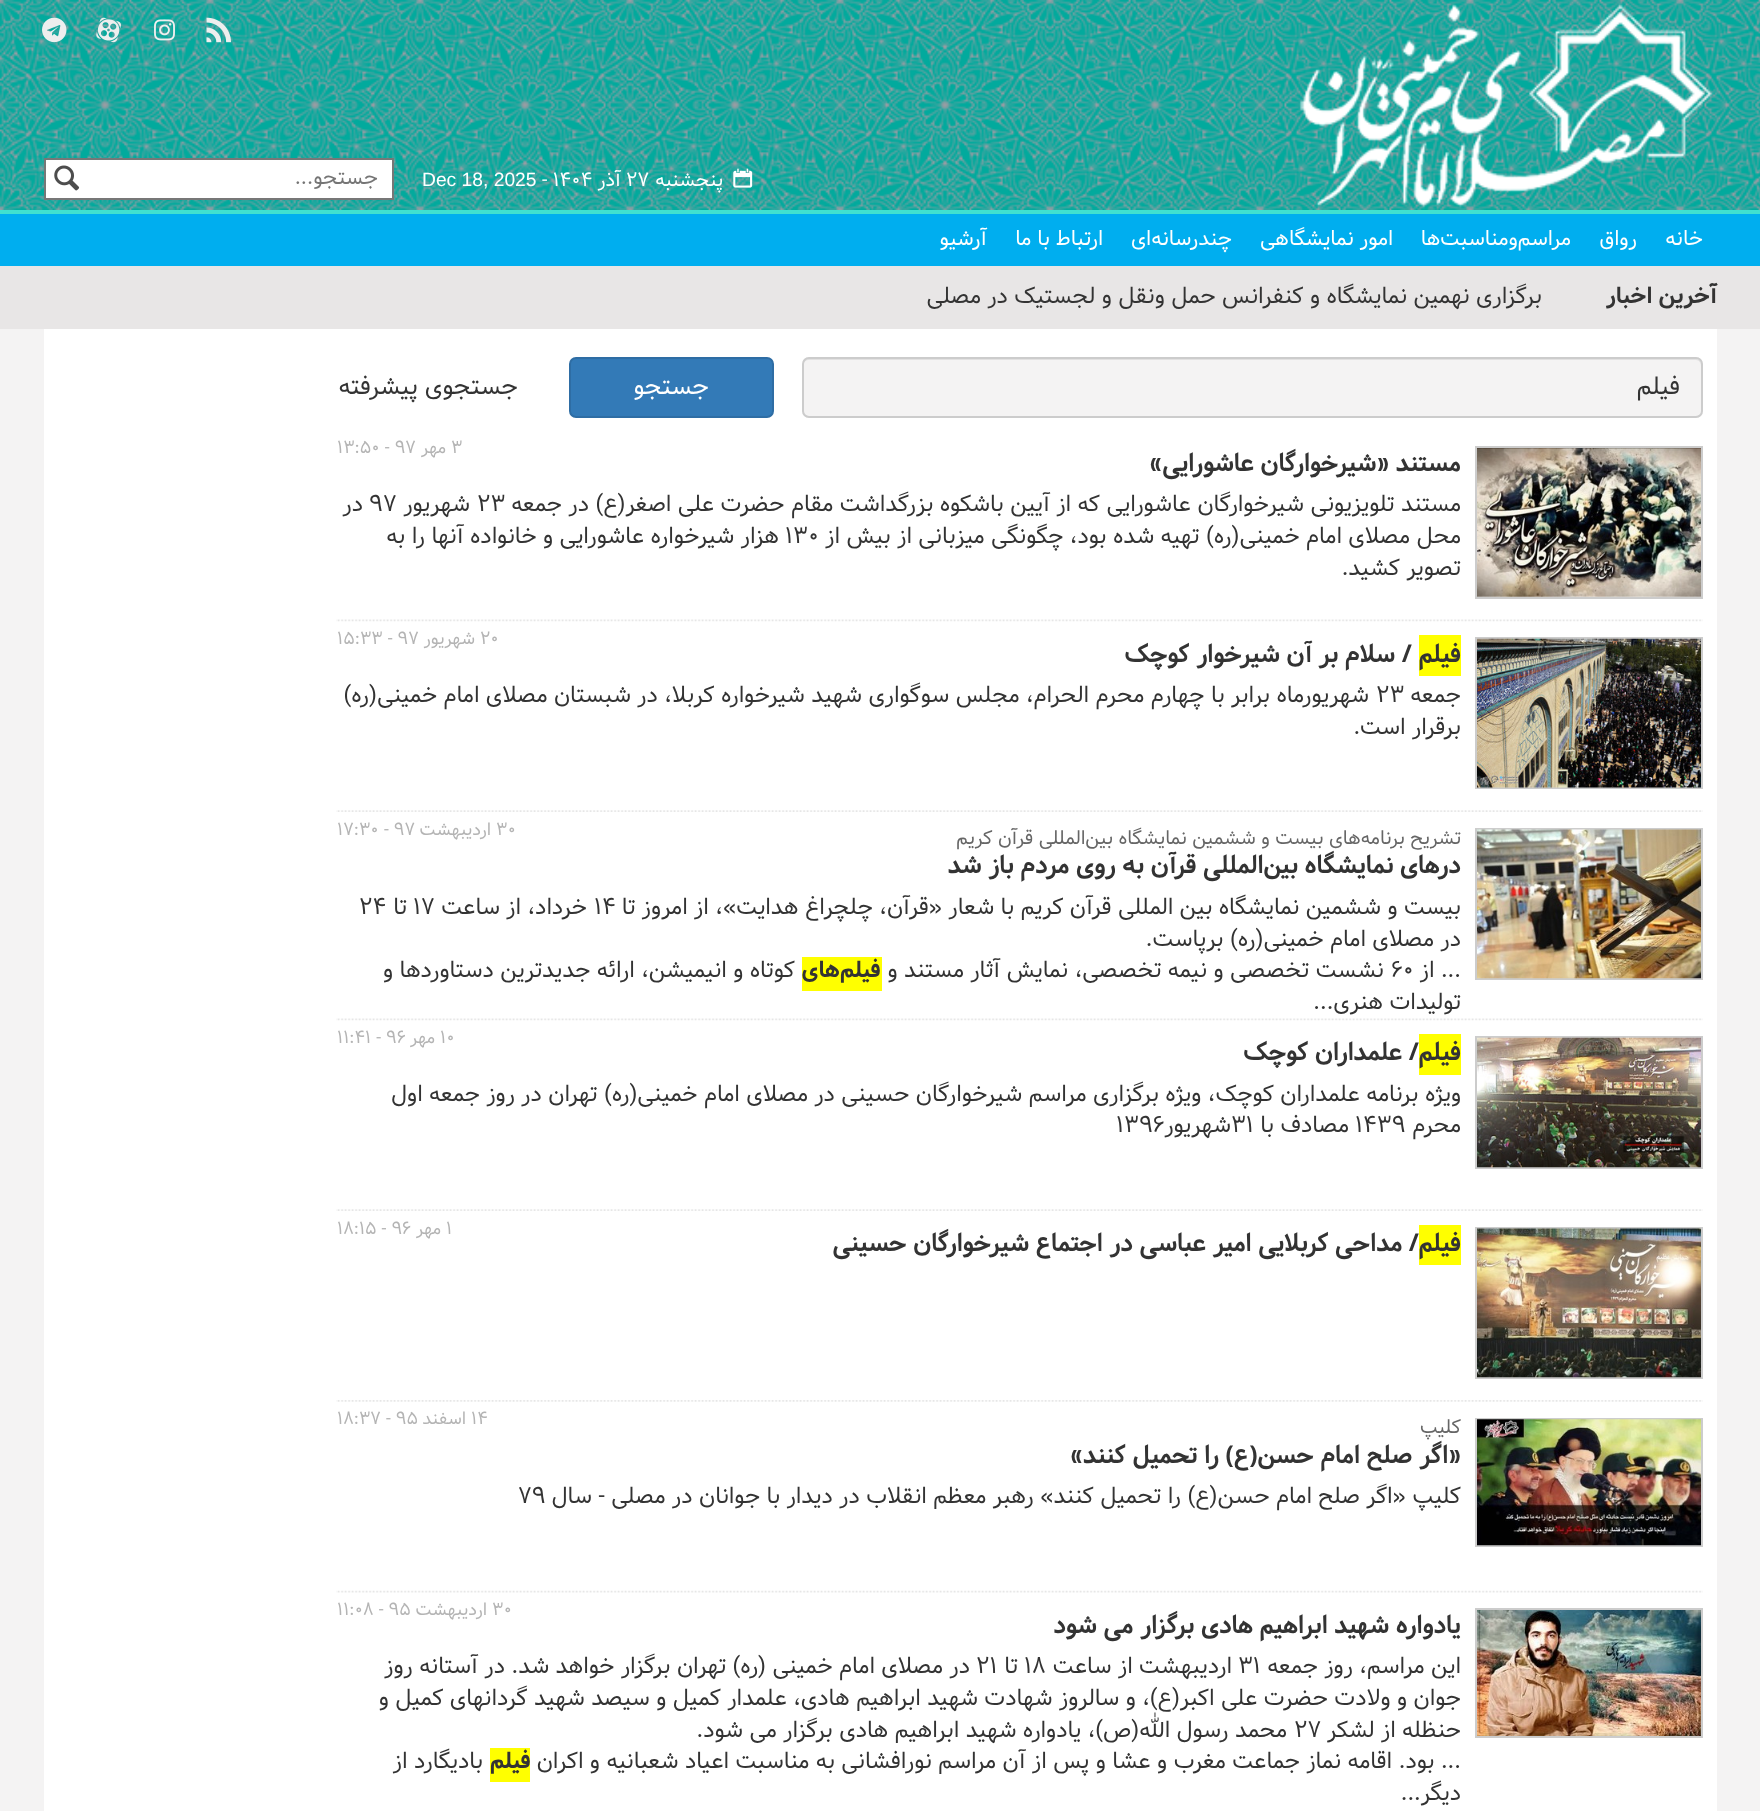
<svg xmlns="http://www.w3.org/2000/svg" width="1760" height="1811">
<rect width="100%" height="100%" fill="#f4f3f3"/>
<rect width="1760" height="210" fill="#02aa9d"/>
<image x="0" y="0" width="1760" height="210" href="media/1.png"/>
<image x="206" y="17" width="25" height="26" href="media/2.png"/>
<image x="154" y="19" width="21" height="22" href="media/3.png"/>
<image x="96" y="17" width="25" height="26" href="media/4.png"/>
<image x="42" y="17" width="25" height="26" href="media/5.png"/>
<image x="1299" y="3" width="415" height="206" href="media/6.png"/>
<image x="733" y="168" width="20" height="20" href="media/7.png"/>
<text x="723" y="186" style="font-family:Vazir;font-size:19.25px;direction:rtl;fill:#fff">پنجشنبه</text>
<text x="626" y="186" style="font-family:Vazir;font-size:19.25px;fill:#fff">۲۷</text>
<text x="621" y="186" style="font-family:Vazir;font-size:19.25px;direction:rtl;fill:#fff">آذر</text>
<text x="542" y="186" style="font-family:Vazir;font-size:19.25px;fill:#fff">- ۱۴۰۴</text>
<text x="422" y="186" style="font-family:Liberation Sans;font-size:19.25px;fill:#fff">Dec 18, 2025</text>
<rect x="45" y="159" width="348" height="40" fill="#fff" stroke="#777" stroke-width="2"/>
<text x="378" y="184" style="font-family:Vazir;font-size:21px;direction:rtl;fill:#757575">جستجو...</text>
<image x="54" y="165" width="26" height="26" href="media/8.png"/>
<rect y="214" width="1760" height="52" fill="#00aeef"/>
<rect y="210" width="1760" height="4" fill="#40e0d0"/>
<text x="1703" y="245" style="font-family:Vazir;font-size:21px;direction:rtl;fill:#fff">خانه</text>
<text x="1637" y="245" style="font-family:Vazir;font-size:21px;direction:rtl;fill:#fff">رواق</text>
<text x="1571" y="245" style="font-family:Vazir;font-size:21px;direction:rtl;fill:#fff">مراسم‌ومناسبت‌ها</text>
<text x="1393" y="245" style="font-family:Vazir;font-size:21px;direction:rtl;fill:#fff">امور نمایشگاهی</text>
<text x="1232" y="245" style="font-family:Vazir;font-size:21px;direction:rtl;fill:#fff">چندرسانه‌ای</text>
<text x="1103" y="245" style="font-family:Vazir;font-size:21px;direction:rtl;fill:#fff">ارتباط با ما</text>
<text x="987" y="245" style="font-family:Vazir;font-size:21px;direction:rtl;fill:#fff">آرشیو</text>
<rect y="266" width="1760" height="63" fill="#e8e6e6"/>
<text x="1717" y="303" style="font-family:Vazir;font-size:22.75px;font-weight:bold;direction:rtl;fill:#333">آخرین اخبار</text>
<text x="1542" y="303" style="font-family:Vazir;font-size:22.75px;direction:rtl;fill:#333">برگزاری نهمین نمایشگاه و کنفرانس حمل‌ ونقل و لجستیک در مصلی</text>
<rect x="44" y="329" width="1673" height="1482" fill="#fff"/>
<rect x="802" y="357" width="901" height="61" rx="7" fill="#f4f3f3"/>
<path d="M808 360h888c3 0 5 3 5 6v-2c0-3-2-5-5-5h-888c-3 0-5 2-5 5v2c0-3 3-6 5-6z" fill="#e2e1e1"/>
<rect x="803" y="358" width="899" height="59" rx="6" fill="none" stroke="#ccc" stroke-width="2"/>
<text x="1680" y="394" style="font-family:Vazir;font-size:24.5px;direction:rtl;fill:#333">فیلم</text>
<rect x="570" y="358" width="203" height="59" rx="6" fill="#337ab7" stroke="#2e6da4" stroke-width="2"/>
<text x="709" y="394" style="font-family:Vazir;font-size:24.5px;direction:rtl;fill:#fff">جستجو</text>
<text x="518" y="394" style="font-family:Vazir;font-size:24.5px;direction:rtl;fill:#333">جستجوی پیشرفته</text>
<rect x="1476" y="447" width="226" height="151" fill="none" stroke="#ccc" stroke-width="2"/>
<image x="1477" y="448" width="224" height="149" href="media/9.png"/>
<text x="1461" y="471" style="font-family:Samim;font-size:24.5px;font-weight:bold;direction:rtl;fill:#333">مستند «شیرخوارگان عاشورایی»</text>
<text x="451" y="453" style="font-family:Vazir;font-size:17.5px;fill:#b4b4b4">۳</text>
<text x="446" y="453" style="font-family:Vazir;font-size:17.5px;direction:rtl;fill:#b4b4b4">مهر</text>
<text x="337" y="453" style="font-family:Vazir;font-size:17.5px;fill:#b4b4b4">۱۳:۵۰ - ۹۷</text>
<text x="1461" y="511" style="font-family:Vazir;font-size:22.75px;direction:rtl;fill:#333">مستند تلویزیونی شیرخوارگان عاشورایی که از آیین باشکوه بزرگداشت مقام حضرت علی اصغر(ع) در جمعه</text>
<text x="477" y="511" style="font-family:Vazir;font-size:22.75px;fill:#333">۲۳</text>
<text x="470" y="511" style="font-family:Vazir;font-size:22.75px;direction:rtl;fill:#333">شهریور</text>
<text x="369" y="511" style="font-family:Vazir;font-size:22.75px;fill:#333">۹۷</text>
<text x="363" y="511" style="font-family:Vazir;font-size:22.75px;direction:rtl;fill:#333">در</text>
<text x="1461" y="543" style="font-family:Vazir;font-size:22.75px;direction:rtl;fill:#333">محل مصلای امام خمینی(ره) تهیه شده بود، چگونگی میزبانی از بیش از</text>
<text x="785" y="543" style="font-family:Vazir;font-size:22.75px;fill:#333">۱۳۰</text>
<text x="779" y="543" style="font-family:Vazir;font-size:22.75px;direction:rtl;fill:#333">هزار شیرخواره عاشورایی و خانواده‌ آنها را به</text>
<text x="1461" y="575" style="font-family:Vazir;font-size:22.75px;direction:rtl;fill:#333">تصویر کشید.</text>
<image x="336" y="619" width="1367" height="3" href="media/10.png"/>
<rect x="1476" y="638" width="226" height="150" fill="none" stroke="#ccc" stroke-width="2"/>
<image x="1477" y="638" width="224" height="150" href="media/11.png"/>
<rect x="1419" y="635" width="42" height="41" fill="#ff0"/>
<text x="1461" y="662" style="font-family:Samim;font-size:24.5px;font-weight:bold;direction:rtl;fill:#333">فیلم</text>
<text x="1412" y="662" style="font-family:Samim;font-size:24.5px;font-weight:bold;direction:rtl;fill:#333">/ سلام بر آن شیرخوار کوچک</text>
<text x="480" y="644" style="font-family:Vazir;font-size:17.5px;fill:#b4b4b4">۲۰</text>
<text x="475" y="644" style="font-family:Vazir;font-size:17.5px;direction:rtl;fill:#b4b4b4">شهریور</text>
<text x="337" y="644" style="font-family:Vazir;font-size:17.5px;fill:#b4b4b4">۱۵:۳۳ - ۹۷</text>
<text x="1461" y="702" style="font-family:Vazir;font-size:22.75px;direction:rtl;fill:#333">جمعه</text>
<text x="1376" y="702" style="font-family:Vazir;font-size:22.75px;fill:#333">۲۳</text>
<text x="1369" y="702" style="font-family:Vazir;font-size:22.75px;direction:rtl;fill:#333">شهریورماه برابر با چهارم محرم الحرام، مجلس سوگواری شهید شیرخواره کربلا، در شبستان مصلای امام خمینی(ره)</text>
<text x="1461" y="734" style="font-family:Vazir;font-size:22.75px;direction:rtl;fill:#333">برقرار است.</text>
<image x="336" y="810" width="1367" height="2" href="media/12.png"/>
<rect x="1476" y="829" width="226" height="150" fill="none" stroke="#ccc" stroke-width="2"/>
<image x="1477" y="829" width="224" height="150" href="media/13.png"/>
<text x="1461" y="844" style="font-family:Vazir;font-size:19.25px;direction:rtl;fill:#666">تشریح برنامه‌های بیست و ششمین نمایشگاه بین‌المللی قرآن کریم</text>
<text x="496" y="835" style="font-family:Vazir;font-size:17.5px;fill:#b4b4b4">۳۰</text>
<text x="491" y="835" style="font-family:Vazir;font-size:17.5px;direction:rtl;fill:#b4b4b4">اردیبهشت</text>
<text x="337" y="835" style="font-family:Vazir;font-size:17.5px;fill:#b4b4b4">۱۷:۳۰ - ۹۷</text>
<text x="1461" y="873" style="font-family:Samim;font-size:24.5px;font-weight:bold;direction:rtl;fill:#333">درهای نمایشگاه بین‌المللی قرآن به روی مردم باز شد</text>
<text x="1461" y="914" style="font-family:Vazir;font-size:22.75px;direction:rtl;fill:#333">بیست و ششمین نمایشگاه بین المللی قرآن کریم با شعار «قرآن، چلچراغ هدایت»، از امروز تا</text>
<text x="594" y="914" style="font-family:Vazir;font-size:22.75px;fill:#333">۱۴</text>
<text x="587" y="914" style="font-family:Vazir;font-size:22.75px;direction:rtl;fill:#333">خرداد، از ساعت</text>
<text x="413" y="914" style="font-family:Vazir;font-size:22.75px;fill:#333">۱۷</text>
<text x="407" y="914" style="font-family:Vazir;font-size:22.75px;direction:rtl;fill:#333">تا</text>
<text x="359" y="914" style="font-family:Vazir;font-size:22.75px;fill:#333">۲۴</text>
<text x="1461" y="946" style="font-family:Vazir;font-size:22.75px;direction:rtl;fill:#333">در مصلای امام خمینی(ره) برپاست.</text>
<text x="1461" y="977" style="font-family:Vazir;font-size:22.75px;direction:rtl;fill:#333">... از</text>
<text x="1391" y="977" style="font-family:Vazir;font-size:22.75px;fill:#333">۶۰</text>
<text x="1384" y="977" style="font-family:Vazir;font-size:22.75px;direction:rtl;fill:#333">نشست تخصصی و نیمه تخصصی، نمایش آثار مستند و</text>
<rect x="802" y="957" width="80" height="34" fill="#ff0"/>
<text x="881" y="977" style="font-family:Vazir;font-size:22.75px;font-weight:bold;direction:rtl;fill:#333">فیلم‌های</text>
<text x="795" y="977" style="font-family:Vazir;font-size:22.75px;direction:rtl;fill:#333">کوتاه و انیمیشن، ارائه ‌جدیدترین دستاوردها و</text>
<text x="1461" y="1009" style="font-family:Vazir;font-size:22.75px;direction:rtl;fill:#333">تولیدات هنری...</text>
<image x="336" y="1018" width="1367" height="3" href="media/10.png"/>
<rect x="1476" y="1037" width="226" height="131" fill="none" stroke="#ccc" stroke-width="2"/>
<image x="1477" y="1037" width="224" height="131" href="media/14.png"/>
<rect x="1419" y="1034" width="42" height="41" fill="#ff0"/>
<text x="1461" y="1060" style="font-family:Samim;font-size:24.5px;font-weight:bold;direction:rtl;fill:#333">فیلم</text>
<text x="1419" y="1060" style="font-family:Samim;font-size:24.5px;font-weight:bold;direction:rtl;fill:#333">/ علمداران کوچک</text>
<text x="440" y="1043" style="font-family:Vazir;font-size:17.5px;fill:#b4b4b4">۱۰</text>
<text x="435" y="1043" style="font-family:Vazir;font-size:17.5px;direction:rtl;fill:#b4b4b4">مهر</text>
<text x="337" y="1043" style="font-family:Vazir;font-size:17.5px;fill:#b4b4b4">۱۱:۴۱ - ۹۶</text>
<text x="1461" y="1101" style="font-family:Vazir;font-size:22.75px;direction:rtl;fill:#333">ویژه برنامه علمداران کوچک، ویژه برگزاری مراسم شیرخوارگان حسینی در مصلای امام خمینی(ره) تهران در روز جمعه اول</text>
<text x="1461" y="1132" style="font-family:Vazir;font-size:22.75px;direction:rtl;fill:#333">محرم</text>
<text x="1355" y="1132" style="font-family:Vazir;font-size:22.75px;fill:#333">۱۴۳۹</text>
<text x="1349" y="1132" style="font-family:Vazir;font-size:22.75px;direction:rtl;fill:#333">مصادف با</text>
<text x="1231" y="1132" style="font-family:Vazir;font-size:22.75px;fill:#333">۳۱</text>
<text x="1231" y="1132" style="font-family:Vazir;font-size:22.75px;direction:rtl;fill:#333">شهریور</text>
<text x="1116" y="1132" style="font-family:Vazir;font-size:22.75px;fill:#333">۱۳۹۶</text>
<image x="336" y="1209" width="1367" height="2" href="media/12.png"/>
<rect x="1476" y="1228" width="226" height="150" fill="none" stroke="#ccc" stroke-width="2"/>
<image x="1477" y="1228" width="224" height="150" href="media/15.png"/>
<rect x="1419" y="1225" width="42" height="40" fill="#ff0"/>
<text x="1461" y="1251" style="font-family:Samim;font-size:24.5px;font-weight:bold;direction:rtl;fill:#333">فیلم</text>
<text x="1419" y="1251" style="font-family:Samim;font-size:24.5px;font-weight:bold;direction:rtl;fill:#333">/ مداحی کربلایی امیر عباسی در اجتماع شیرخوارگان حسینی</text>
<text x="446" y="1234" style="font-family:Vazir;font-size:17.5px;fill:#b4b4b4">۱</text>
<text x="441" y="1234" style="font-family:Vazir;font-size:17.5px;direction:rtl;fill:#b4b4b4">مهر</text>
<text x="337" y="1234" style="font-family:Vazir;font-size:17.5px;fill:#b4b4b4">۱۸:۱۵ - ۹۶</text>
<image x="336" y="1400" width="1367" height="2" href="media/16.png"/>
<rect x="1476" y="1419" width="226" height="127" fill="none" stroke="#ccc" stroke-width="2"/>
<image x="1477" y="1419" width="224" height="127" href="media/17.png"/>
<text x="471" y="1424" style="font-family:Vazir;font-size:17.5px;fill:#b4b4b4">۱۴</text>
<text x="466" y="1424" style="font-family:Vazir;font-size:17.5px;direction:rtl;fill:#b4b4b4">اسفند</text>
<text x="337" y="1424" style="font-family:Vazir;font-size:17.5px;fill:#b4b4b4">۱۸:۳۷ - ۹۵</text>
<text x="1461" y="1433" style="font-family:Vazir;font-size:19.25px;direction:rtl;fill:#666">کلیپ</text>
<text x="1461" y="1463" style="font-family:Samim;font-size:24.5px;font-weight:bold;direction:rtl;fill:#333">«اگر صلح امام حسن(ع) را تحمیل کنند»</text>
<text x="1461" y="1503" style="font-family:Vazir;font-size:22.75px;direction:rtl;fill:#333">کلیپ «اگر صلح امام حسن(ع) را تحمیل کنند» رهبر معظم انقلاب در دیدار با جوانان در مصلی - سال</text>
<text x="518" y="1503" style="font-family:Vazir;font-size:22.75px;fill:#333">۷۹</text>
<image x="336" y="1590" width="1367" height="3" href="media/18.png"/>
<rect x="1476" y="1609" width="226" height="128" fill="none" stroke="#ccc" stroke-width="2"/>
<image x="1477" y="1610" width="224" height="126" href="media/19.png"/>
<text x="1461" y="1633" style="font-family:Samim;font-size:24.5px;font-weight:bold;direction:rtl;fill:#333">یادواره شهید ابراهیم هادی برگزار می شود</text>
<text x="492" y="1615" style="font-family:Vazir;font-size:17.5px;fill:#b4b4b4">۳۰</text>
<text x="487" y="1615" style="font-family:Vazir;font-size:17.5px;direction:rtl;fill:#b4b4b4">اردیبهشت</text>
<text x="337" y="1615" style="font-family:Vazir;font-size:17.5px;fill:#b4b4b4">۱۱:۰۸ - ۹۵</text>
<text x="1461" y="1673" style="font-family:Vazir;font-size:22.75px;direction:rtl;fill:#333">این مراسم، روز جمعه</text>
<text x="1238" y="1673" style="font-family:Vazir;font-size:22.75px;fill:#333">٣١</text>
<text x="1232" y="1673" style="font-family:Vazir;font-size:22.75px;direction:rtl;fill:#333">اردیبهشت از ساعت</text>
<text x="1024" y="1673" style="font-family:Vazir;font-size:22.75px;fill:#333">١٨</text>
<text x="1018" y="1673" style="font-family:Vazir;font-size:22.75px;direction:rtl;fill:#333">تا</text>
<text x="976" y="1673" style="font-family:Vazir;font-size:22.75px;fill:#333">٢١</text>
<text x="970" y="1673" style="font-family:Vazir;font-size:22.75px;direction:rtl;fill:#333">در مصلای امام خمینی (ره) تهران برگزار خواهد شد.</text>
<text x="505" y="1673" style="font-family:Vazir;font-size:22.75px;direction:rtl;fill:#333">در آستانه روز</text>
<text x="1461" y="1705" style="font-family:Vazir;font-size:22.75px;direction:rtl;fill:#333">جوان و ولادت حضرت علی اکبر(ع)، و سالروز شهادت شهید ابراهیم هادی، علمدار کمیل و سیصد شهید گردانهای کمیل و</text>
<text x="1461" y="1737" style="font-family:Vazir;font-size:22.75px;direction:rtl;fill:#333">حنظله از لشکر</text>
<text x="1294" y="1737" style="font-family:Vazir;font-size:22.75px;fill:#333">۲۷</text>
<text x="1287" y="1737" style="font-family:Vazir;font-size:22.75px;direction:rtl;fill:#333">محمد رسول الله(ص)، یادواره شهید ابراهیم هادی برگزار می شود.</text>
<text x="1461" y="1768" style="font-family:Vazir;font-size:22.75px;direction:rtl;fill:#333">... بود.</text>
<text x="1392" y="1768" style="font-family:Vazir;font-size:22.75px;direction:rtl;fill:#333">اقامه نماز جماعت مغرب و عشا و پس از آن مراسم نورافشانی به مناسبت اعیاد شعبانیه و اکران</text>
<rect x="490" y="1748" width="40" height="34" fill="#ff0"/>
<text x="531" y="1768" style="font-family:Vazir;font-size:22.75px;font-weight:bold;direction:rtl;fill:#333">فیلم</text>
<text x="483" y="1768" style="font-family:Vazir;font-size:22.75px;direction:rtl;fill:#333">بادیگارد از</text>
<text x="1461" y="1800" style="font-family:Vazir;font-size:22.75px;direction:rtl;fill:#333">دیگر...</text>
</svg>
